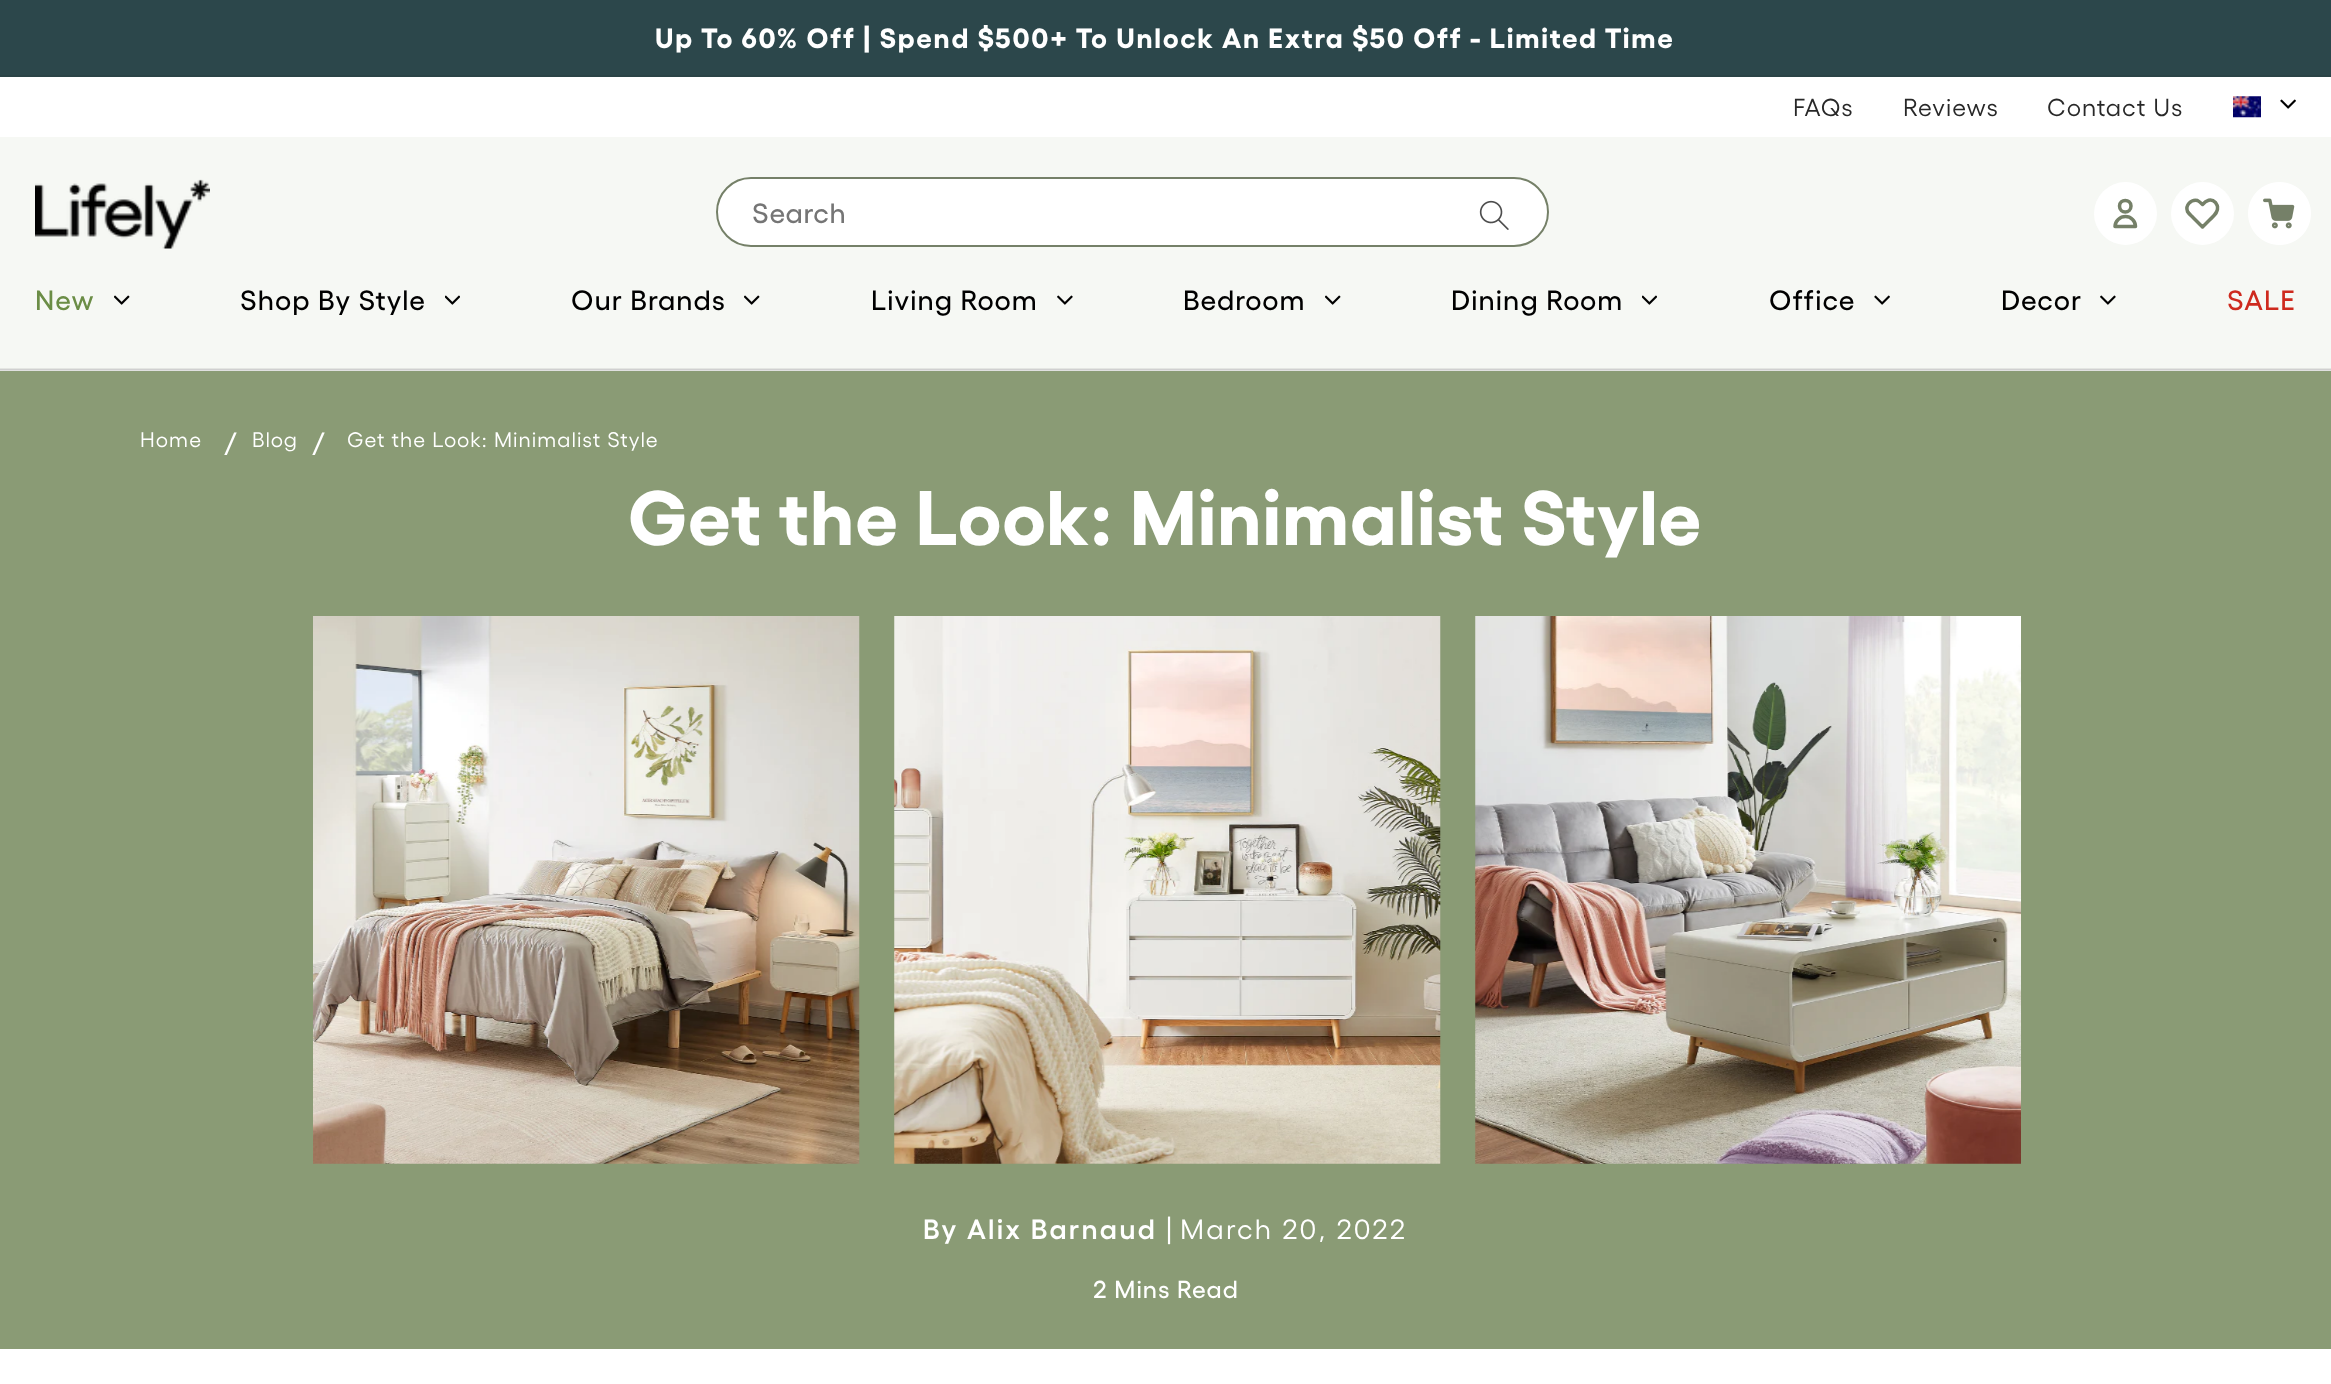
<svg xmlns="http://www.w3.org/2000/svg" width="2331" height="1384">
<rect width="100%" height="100%" fill="#fff"/>
<rect width="2331" height="75" fill="#2c474b"/>
<rect y="75" width="2331" height="2" fill="#2a4346"/>
<text x="655" y="48" style="font-family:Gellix;font-size:28px;font-weight:bold;letter-spacing:1.75px;fill:#fff">Up To 60% Off | Spend $500+ To Unlock An Extra $50 Off - Limited Time</text>
<text x="1793" y="116" style="font-family:Gellix;font-size:24.5px;letter-spacing:1.05px;fill:#282828">FAQs</text>
<text x="1903" y="116" style="font-family:Gellix;font-size:24.5px;letter-spacing:1.05px;fill:#282828">Reviews</text>
<text x="2047" y="116" style="font-family:Gellix;font-size:24.5px;letter-spacing:1.05px;fill:#282828">Contact Us</text>
<image x="2233" y="96" width="28" height="22" href="media/1.png"/>
<image x="2280" y="99" width="16" height="10" href="media/2.png"/>
<rect y="370" width="2331" height="1" fill="#e0e0e0"/>
<rect y="369" width="2331" height="1" fill="#d0d0d0"/>
<rect y="137" width="2331" height="231" fill="#f6f8f4"/>
<rect y="368" width="2331" height="1" fill="#e4e6e2"/>
<image x="35" y="179" width="175" height="70" href="media/3.png"/>
<rect x="717" y="178" width="831" height="68" rx="34" fill="#fff" stroke="#758068" stroke-width="2"/>
<text x="752" y="223" style="font-family:Gellix;font-size:28px;font-weight:500;letter-spacing:0.75px;fill:#757575">Search</text>
<image x="1479" y="200" width="30" height="30" href="media/4.png"/>
<circle cx="2125.5" cy="213.5" r="31.5" fill="#fff"/>
<path d="M2131 206c0 8-11.5 8-11.5 0c0-7.5 11.5-7.5 11.5 0zm-5.5 10.5c-5.5 0-10.5 4.5-10.5 10h20.5c0-5.5-4.5-10-10-10z" fill="none" stroke="#758068" stroke-width="3.5" stroke-linecap="round" stroke-linejoin="round"/>
<circle cx="2202.5" cy="213.5" r="31.5" fill="#fff"/>
<path d="M2215.5 202.5c-4.5-4.5-9.5-2-13 2c-1.5-1.5-3-3-5-4c-6.5-1.5-12.5 5-10 11c1.5 2.5 3.5 4 5.5 6l9.5 9.5l7.5-7.5c3.5-3.5 8.5-7 7.5-12.5c0-1.5-1-3-2-4.5z" fill="none" stroke="#758068" stroke-width="3.5" stroke-linecap="round" stroke-linejoin="round"/>
<image x="2248" y="182" width="63" height="63" href="media/5.png"/>
<text x="35" y="310" style="font-family:Gellix;font-size:28px;font-weight:500;letter-spacing:1.05px;fill:#6b8d46">New</text>
<image x="114" y="295" width="16" height="10" href="media/6.png"/>
<text x="240" y="310" style="font-family:Gellix;font-size:28px;font-weight:500;letter-spacing:1.05px;fill:#000">Shop By Style</text>
<image x="445" y="295" width="15" height="10" href="media/7.png"/>
<text x="571" y="310" style="font-family:Gellix;font-size:28px;font-weight:500;letter-spacing:1.05px;fill:#000">Our Brands</text>
<image x="744" y="295" width="16" height="10" href="media/6.png"/>
<text x="871" y="310" style="font-family:Gellix;font-size:28px;font-weight:500;letter-spacing:1.05px;fill:#000">Living Room</text>
<image x="1057" y="295" width="16" height="10" href="media/8.png"/>
<text x="1183" y="310" style="font-family:Gellix;font-size:28px;font-weight:500;letter-spacing:1.05px;fill:#000">Bedroom</text>
<image x="1325" y="295" width="16" height="10" href="media/6.png"/>
<text x="1451" y="310" style="font-family:Gellix;font-size:28px;font-weight:500;letter-spacing:1.05px;fill:#000">Dining Room</text>
<image x="1642" y="295" width="15" height="10" href="media/7.png"/>
<text x="1769" y="310" style="font-family:Gellix;font-size:28px;font-weight:500;letter-spacing:1.05px;fill:#000">Office</text>
<image x="1874" y="295" width="16" height="10" href="media/9.png"/>
<text x="2001" y="310" style="font-family:Gellix;font-size:28px;font-weight:500;letter-spacing:1.05px;fill:#000">Decor</text>
<image x="2100" y="295" width="16" height="10" href="media/8.png"/>
<text x="2227" y="310" style="font-family:Gellix;font-size:28px;font-weight:500;letter-spacing:1.05px;fill:#ce2a1e">SALE</text>
<rect y="371" width="2331" height="978" fill="#8a9b75"/>
<text x="140" y="447" style="font-family:Gellix;font-size:21px;letter-spacing:1.05px;fill:#fff">Home</text>
<text x="224" y="455" style="font-family:Gellix;font-size:32px;letter-spacing:1.05px;fill:#fff">/</text>
<text x="252" y="447" style="font-family:Gellix;font-size:21px;letter-spacing:1.05px;fill:#fff">Blog</text>
<text x="312" y="455" style="font-family:Gellix;font-size:32px;letter-spacing:1.05px;fill:#fff">/</text>
<text x="347" y="447" style="font-family:Gellix;font-size:21px;letter-spacing:1.05px;fill:#fff">Get the Look: Minimalist Style</text>
<text x="628" y="545" style="font-family:Gellix;font-size:77px;font-weight:bold;letter-spacing:1.05px;fill:#fff">Get the Look: Minimalist Style</text>
<image x="313" y="616" width="547" height="548" href="media/10.png"/>
<image x="894" y="616" width="547" height="548" href="media/11.png"/>
<image x="1475" y="616" width="546" height="548" href="media/12.png"/>
<text x="923" y="1239" style="font-family:Gellix;font-size:28px;font-weight:600;letter-spacing:2.25px;fill:#fff">By Alix Barnaud</text>
<text x="1166" y="1239" style="font-family:Gellix;font-size:28px;letter-spacing:1.05px;fill:#fff">|</text>
<text x="1180" y="1239" style="font-family:Gellix;font-size:28px;letter-spacing:2.25px;fill:#fff">March 20, 2022</text>
<text x="1093" y="1298" style="font-family:Gellix;font-size:24.5px;font-weight:500;letter-spacing:1.05px;fill:#fff">2 Mins Read</text>
</svg>
